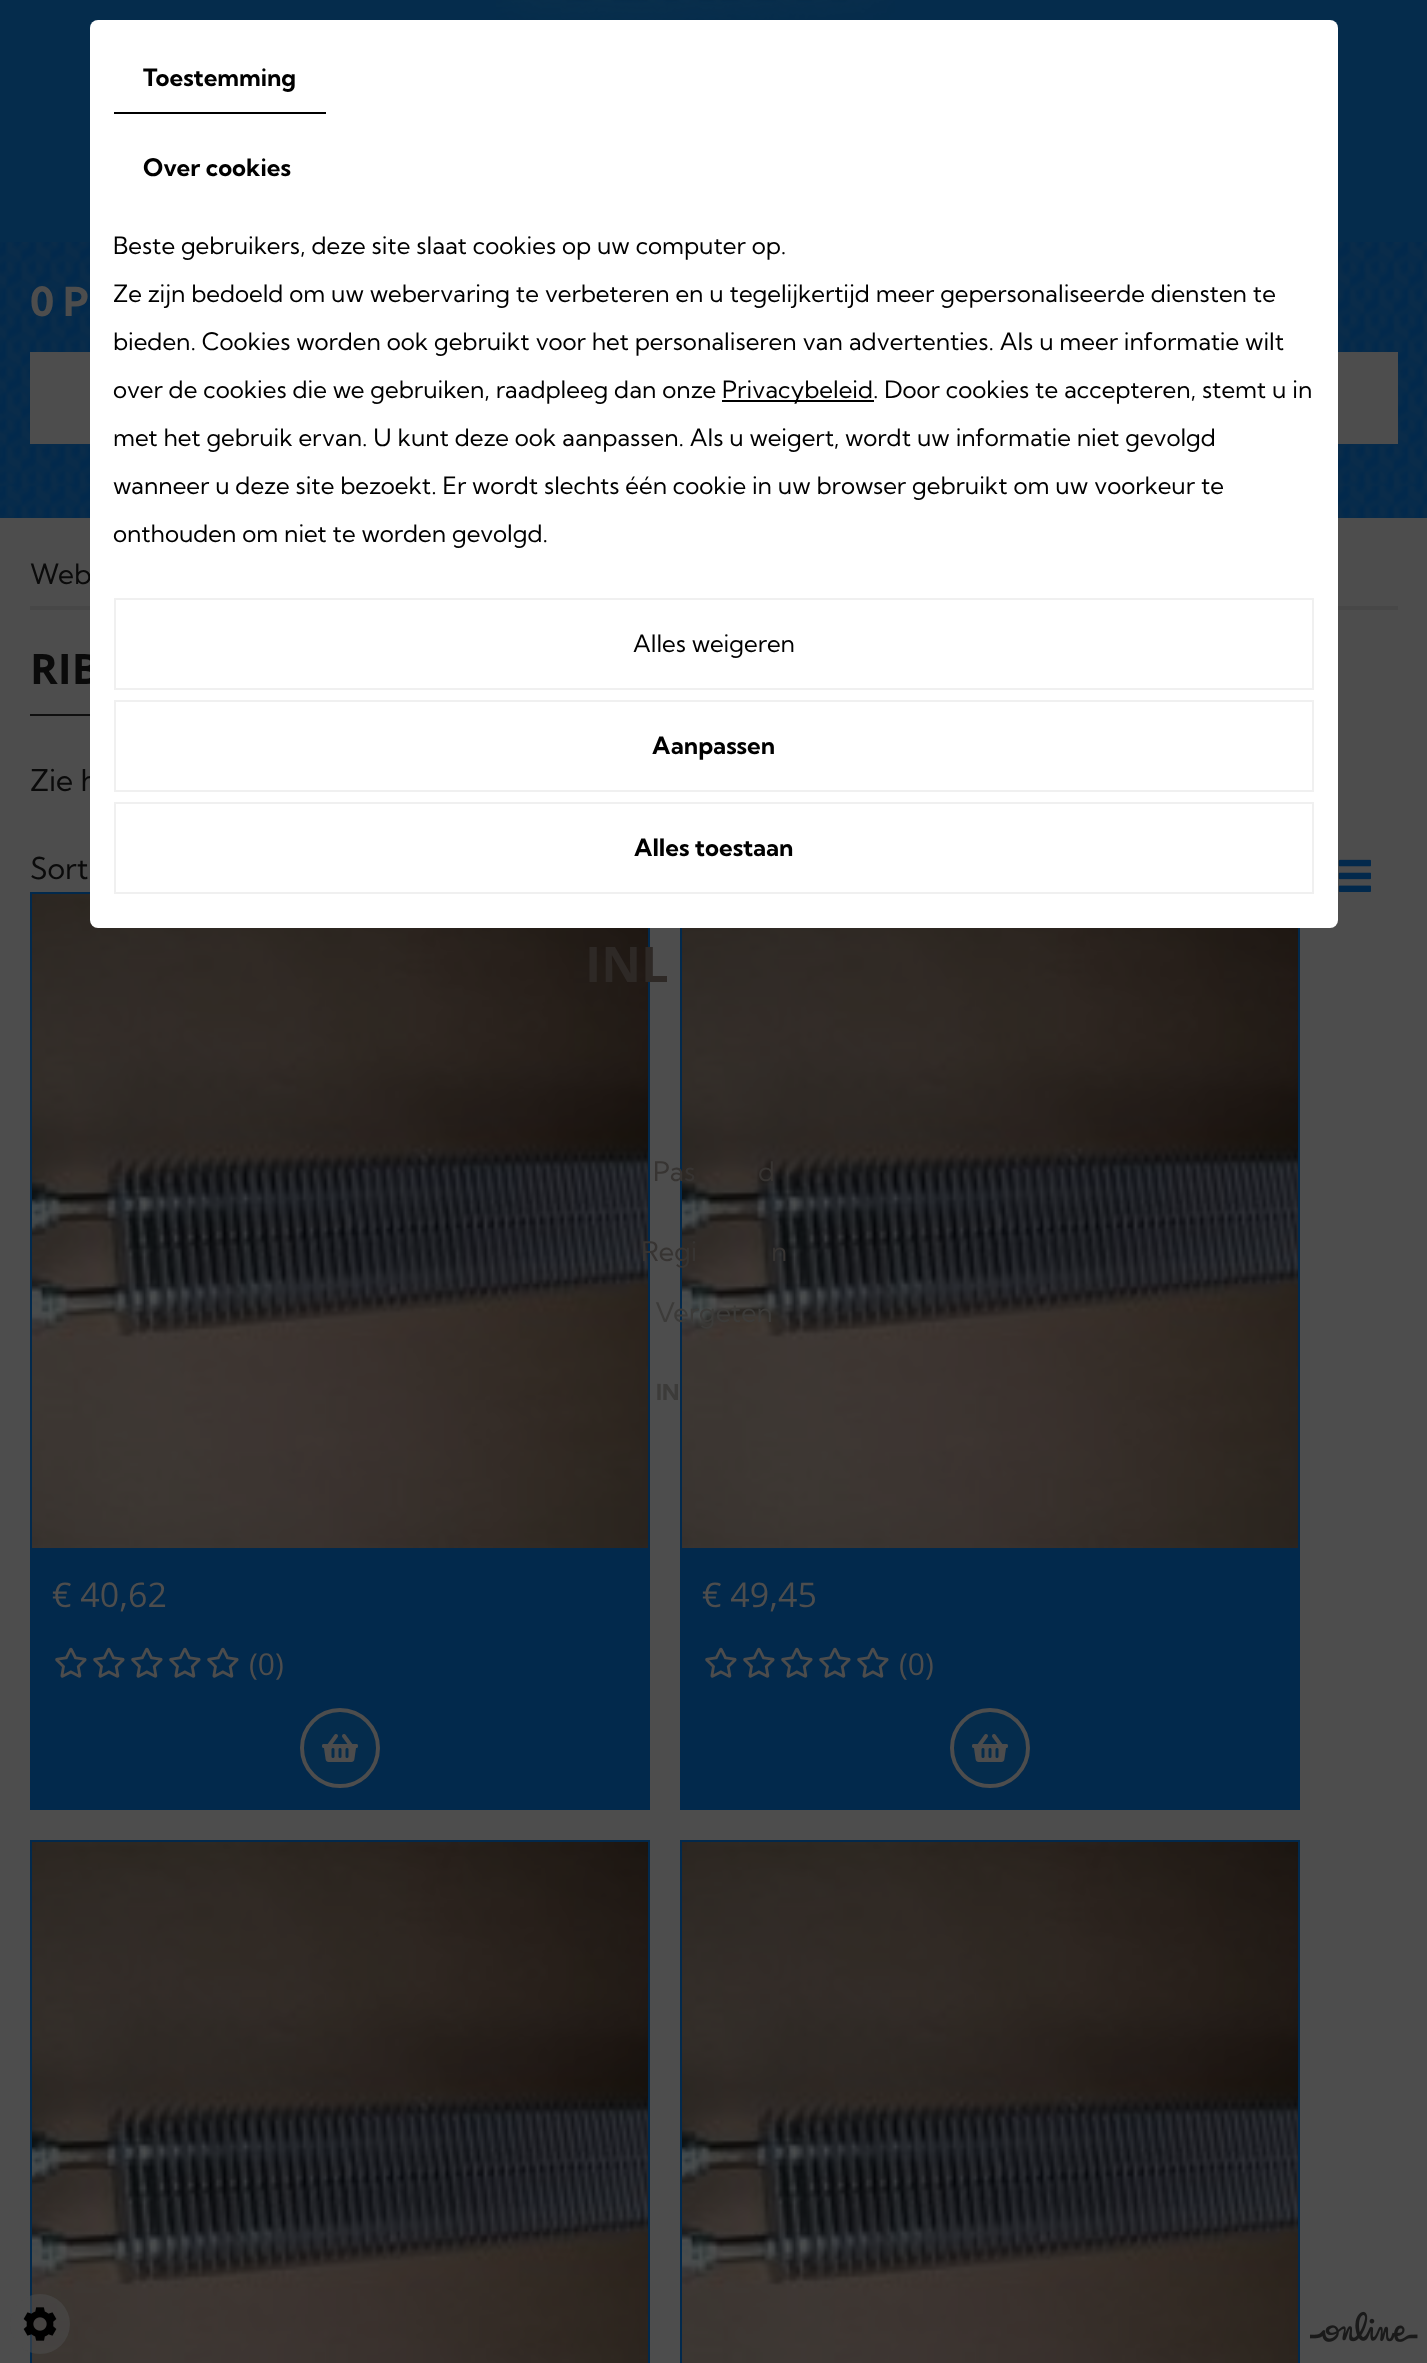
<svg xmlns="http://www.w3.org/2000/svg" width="1427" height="2363">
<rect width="100%" height="100%" fill="#4d4d4d"/>
<image x="0" y="242" width="1427" height="276" href="media/1.png"/>
<rect x="30" y="606" width="1368" height="4" fill="#474747"/>
<text x="30" y="584" style="font-family:Kumbh Sans;font-size:28px;fill:#0a0a0a">Web</text>
<text x="30" y="684" style="font-family:Open Sans;font-size:42px;font-weight:bold;fill:#0a0a0a">RIB</text>
<text x="30" y="791" style="font-family:Kumbh Sans;font-size:30px;fill:#0a0a0a">Zie h</text>
<rect x="30" y="892" width="620" height="918" fill="#02294c"/>
<image x="32" y="894" width="616" height="654" href="media/3.png"/>
<rect width="1427" height="242" fill="#052c4c"/>
<rect x="90" y="20" width="1248" height="908" rx="8" fill="#fff"/>
<rect x="114" y="112" width="212" height="2" fill="#000"/>
<text x="143" y="86" style="font-family:Kumbh Sans;font-size:24px;font-weight:bold;fill:#000">Toestemming</text>
<text x="143" y="176" style="font-family:Kumbh Sans;font-size:24px;font-weight:bold;fill:#000">Over cookies</text>
<text x="113" y="254" style="font-family:Kumbh Sans;font-size:24px;fill:#000">Beste gebruikers, deze site slaat cookies op uw computer op.</text>
<text x="113" y="302" style="font-family:Kumbh Sans;font-size:24px;fill:#000">Ze zijn bedoeld om uw webervaring te verbeteren en u tegelijkertijd meer gepersonaliseerde diensten te</text>
<text x="113" y="350" style="font-family:Kumbh Sans;font-size:24px;fill:#000">bieden. Cookies worden ook gebruikt voor het personaliseren van advertenties. Als u meer informatie wilt</text>
<text x="113" y="398" style="font-family:Kumbh Sans;font-size:24px;fill:#000">over de cookies die we gebruiken, raadpleeg dan onze</text>
<rect x="722" y="400" width="152" height="2" fill="#000"/>
<text x="722" y="398" style="font-family:Kumbh Sans;font-size:24px;fill:#000">Privacybeleid. Door cookies te accepteren, stemt u in</text>
<text x="113" y="446" style="font-family:Kumbh Sans;font-size:24px;fill:#000">met het gebruik ervan. U kunt deze ook aanpassen. Als u weigert, wordt uw informatie niet gevolgd</text>
<text x="113" y="494" style="font-family:Kumbh Sans;font-size:24px;fill:#000">wanneer u deze site bezoekt. Er wordt slechts één cookie in uw browser gebruikt om uw voorkeur te</text>
<text x="113" y="542" style="font-family:Kumbh Sans;font-size:24px;fill:#000">onthouden om niet te worden gevolgd.</text>
<rect x="115" y="599" width="1198" height="90" fill="none" stroke="#f0f0f0" stroke-width="2"/>
<text x="633" y="652" style="font-family:Kumbh Sans;font-size:24px;fill:#000">Alles weigeren</text>
<rect x="115" y="701" width="1198" height="90" fill="none" stroke="#f0f0f0" stroke-width="2"/>
<text x="652" y="754" style="font-family:Kumbh Sans;font-size:24px;font-weight:bold;fill:#000">Aanpassen</text>
<rect x="115" y="803" width="1198" height="90" fill="none" stroke="#f0f0f0" stroke-width="2"/>
<text x="634" y="856" style="font-family:Kumbh Sans;font-size:24px;font-weight:bold;fill:#000">Alles toestaan</text>
<text x="30" y="316" style="font-family:Kumbh Sans;font-size:40px;font-weight:bold;fill:#4d4d4d">0 P</text>
<rect x="30" y="352" width="60" height="92" fill="#4d4d4d"/>
<rect x="1338" y="352" width="60" height="92" fill="#4d4d4d"/>
<rect x="30" y="714" width="60" height="2" fill="#0f0f0f"/>
<text x="30" y="879" style="font-family:Kumbh Sans;font-size:30px;fill:#0a0a0a">Sort</text>
<image x="1338" y="859" width="33" height="33" href="media/2.png"/>
<text x="52" y="1607" style="font-family:Open Sans;font-size:34px;fill:#4d4d4d">€ 40,62</text>
<image x="55" y="1647" width="32" height="31" href="media/4.png"/>
<image x="93" y="1647" width="32" height="31" href="media/4.png"/>
<image x="131" y="1647" width="32" height="31" href="media/4.png"/>
<image x="169" y="1647" width="32" height="31" href="media/4.png"/>
<image x="207" y="1647" width="32" height="31" href="media/4.png"/>
<text x="249" y="1675" style="font-family:Open Sans;font-size:30px;fill:#4d4d4d">(0)</text>
<circle cx="340" cy="1748" r="38" fill="#052c4c" stroke="#4d4d4d" stroke-width="4"/>
<image x="322" y="1734" width="36" height="28" href="media/5.png"/>
<rect x="680" y="928" width="620" height="882" fill="#02294c"/>
<image x="682" y="928" width="616" height="620" href="media/6.png"/>
<text x="702" y="1607" style="font-family:Open Sans;font-size:34px;fill:#4d4d4d">€ 49,45</text>
<image x="705" y="1647" width="32" height="31" href="media/4.png"/>
<image x="743" y="1647" width="32" height="31" href="media/4.png"/>
<image x="781" y="1647" width="32" height="31" href="media/4.png"/>
<image x="819" y="1647" width="32" height="31" href="media/4.png"/>
<image x="857" y="1647" width="32" height="31" href="media/4.png"/>
<text x="899" y="1675" style="font-family:Open Sans;font-size:30px;fill:#4d4d4d">(0)</text>
<circle cx="990" cy="1748" r="38" fill="#052c4c" stroke="#4d4d4d" stroke-width="4"/>
<image x="972" y="1734" width="36" height="28" href="media/5.png"/>
<rect x="30" y="1840" width="620" height="523" fill="#02294c"/>
<image x="32" y="1842" width="616" height="521" href="media/7.png"/>
<rect x="680" y="1840" width="620" height="523" fill="#02294c"/>
<image x="682" y="1842" width="616" height="521" href="media/8.png"/>
<image x="496" y="0" width="399" height="20" href="media/9.png"/>
<text x="585" y="982" style="font-family:Open Sans;font-size:49px;font-weight:bold;fill:#2e2926">INL</text>
<text x="653" y="1181" style="font-family:Kumbh Sans;font-size:27px;fill:#373432">Pas</text>
<text x="758" y="1181" style="font-family:Kumbh Sans;font-size:27px;fill:#373432">d</text>
<text x="641" y="1261" style="font-family:Kumbh Sans;font-size:27px;fill:#373432">Regi</text>
<text x="771" y="1261" style="font-family:Kumbh Sans;font-size:27px;fill:#373432">n</text>
<text x="655" y="1322" style="font-family:Kumbh Sans;font-size:27px;fill:#3c3b39">Vergeten</text>
<text x="656" y="1400" style="font-family:Kumbh Sans;font-size:22px;font-weight:bold;fill:#3c3b39">IN</text>
<circle cx="40" cy="2324" r="30" fill="#4d4d4d8a"/>
<image x="23" y="2307" width="34" height="34" href="media/10.png"/>
<image x="1310" y="2311" width="108" height="31" href="media/11.png"/>
</svg>
